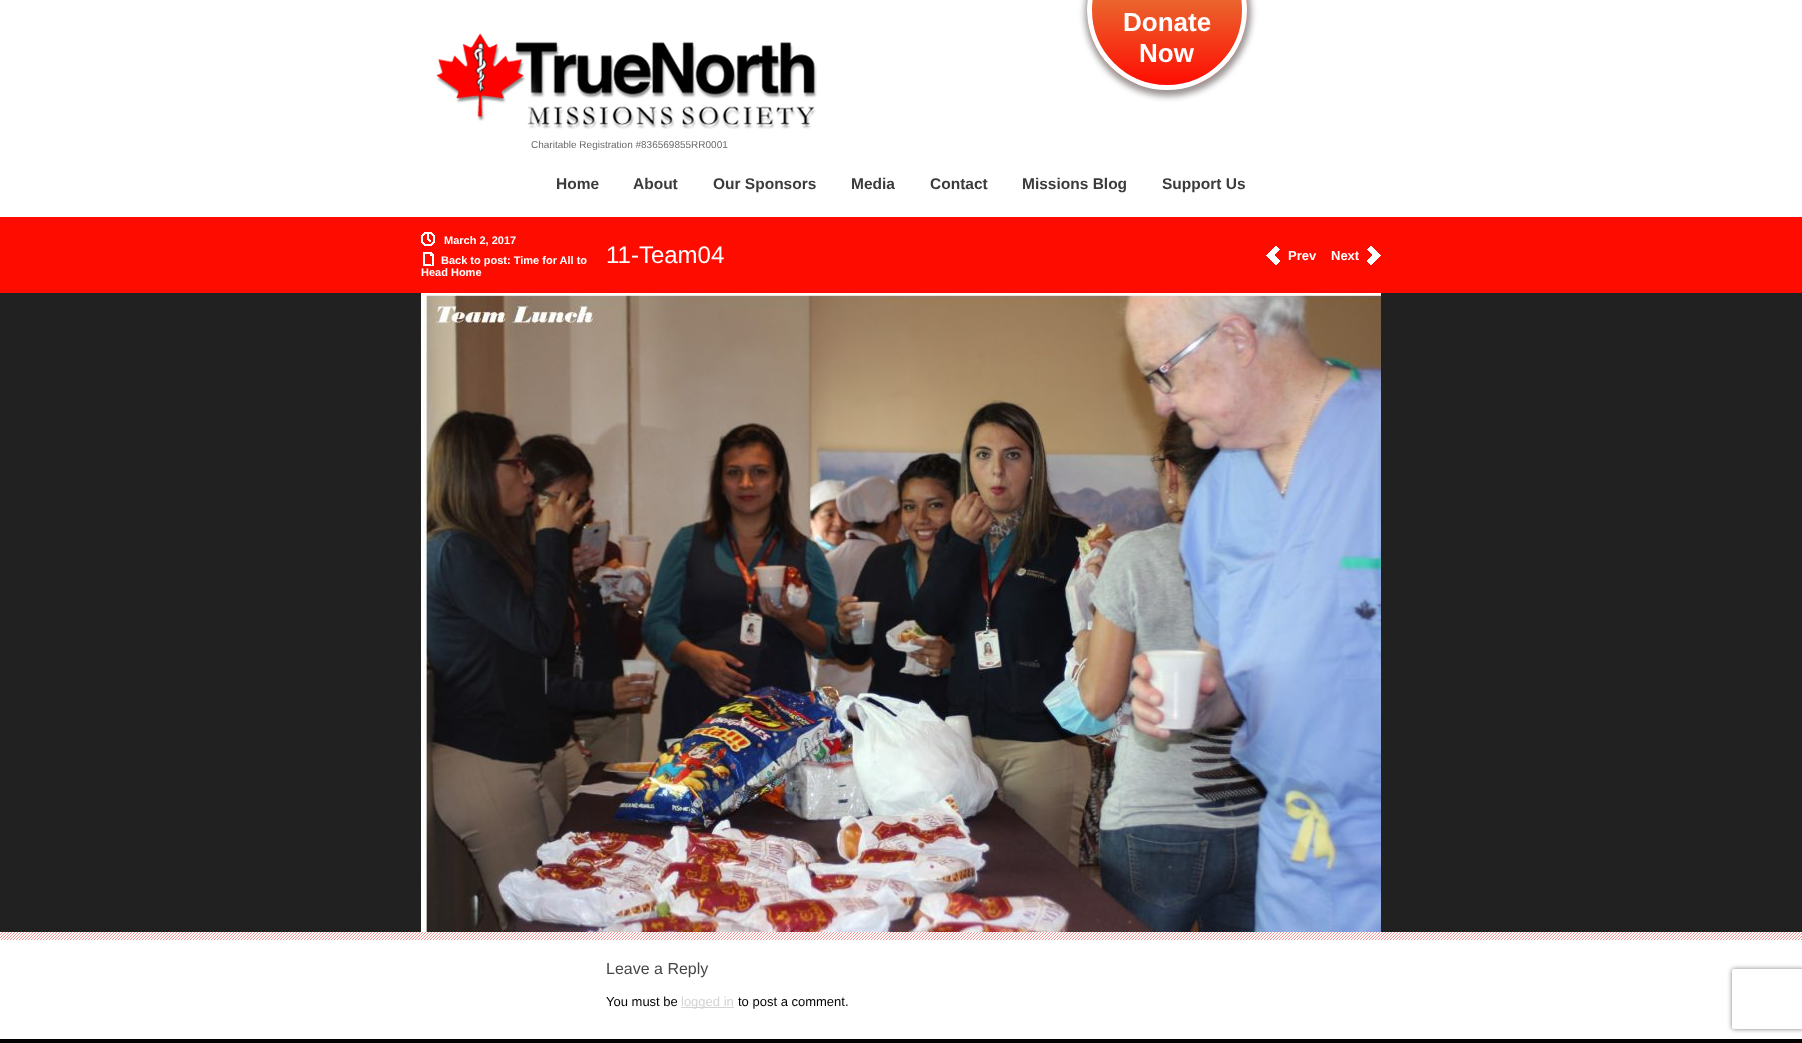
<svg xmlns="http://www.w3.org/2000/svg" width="1802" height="1043">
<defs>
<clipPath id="clip1"><rect x="1087" y="-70" width="160" height="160" rx="80"/></clipPath>
<linearGradient id="g1" gradientUnits="userSpaceOnUse" x1="1167" y1="-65" x2="1167" y2="85"><stop offset="0.09" stop-color="#de9b49"/><stop offset="1" stop-color="#ff0c01"/></linearGradient>
<clipPath id="clip2"><path d="M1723 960h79v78h-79zm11 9h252c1 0 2 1 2 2v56c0 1-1 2-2 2h-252c-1 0-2-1-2-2v-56c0-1 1-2 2-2z" clip-rule="evenodd"/></clipPath>
</defs>
<rect width="100%" height="100%" fill="#fff"/>
<rect x="1085" y="-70" width="166" height="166" rx="83" fill="#9b9494" filter="blur(3px)"/>
<g clip-path="url(#clip1)">
<rect x="1087" width="160" height="85" fill="url(#g1)"/>
</g>
<circle cx="1167" cy="10" r="77.5" fill="none" stroke="#fff" stroke-width="5"/>
<text x="1123" y="31" style="font-family:Liberation Sans;font-size:26px;font-weight:bold;fill:#fff">Donate</text>
<text x="1139" y="62" style="font-family:Liberation Sans;font-size:26px;font-weight:bold;fill:#fff">Now</text>
<image x="436" y="33" width="381" height="96" href="media/1.png"/>
<text x="531" y="148" style="font-family:Liberation Sans;font-size:10px;fill:#6a6a6a">Charitable Registration #836569855RR0001</text>
<text x="556" y="189" style="font-family:Liberation Sans;font-size:15.5px;font-weight:bold;fill:#3b3b3b">Home</text>
<text x="633" y="189" style="font-family:Liberation Sans;font-size:15.5px;font-weight:bold;fill:#3b3b3b">About</text>
<text x="713" y="189" style="font-family:Liberation Sans;font-size:15.5px;font-weight:bold;fill:#3b3b3b">Our Sponsors</text>
<text x="851" y="189" style="font-family:Liberation Sans;font-size:15.5px;font-weight:bold;fill:#3b3b3b">Media</text>
<text x="930" y="189" style="font-family:Liberation Sans;font-size:15.5px;font-weight:bold;fill:#3b3b3b">Contact</text>
<text x="1022" y="189" style="font-family:Liberation Sans;font-size:15.5px;font-weight:bold;fill:#3b3b3b">Missions Blog</text>
<text x="1162" y="189" style="font-family:Liberation Sans;font-size:15.5px;font-weight:bold;fill:#3b3b3b">Support Us</text>
<rect y="217" width="1802" height="76" fill="#ff0c01"/>
<image x="421" y="232" width="14" height="14" href="media/2.png"/>
<text x="444" y="244" style="font-family:Liberation Sans;font-size:11px;font-weight:bold;fill:#fff">March 2, 2017</text>
<image x="423" y="252" width="11" height="14" href="media/3.png"/>
<text x="441" y="264" style="font-family:Liberation Sans;font-size:11px;font-weight:bold;fill:#fff">Back to post: Time for All to</text>
<text x="421" y="276" style="font-family:Liberation Sans;font-size:11px;font-weight:bold;fill:#fff">Head Home</text>
<text x="606" y="263" style="font-family:Liberation Sans;font-size:24px;fill:#fff">11-Team04</text>
<image x="1266" y="246" width="14" height="19" href="media/4.png"/>
<text x="1288" y="260" style="font-family:Liberation Sans;font-size:13px;font-weight:bold;fill:#fff">Prev</text>
<image x="1367" y="246" width="14" height="19" href="media/5.png"/>
<text x="1331" y="260" style="font-family:Liberation Sans;font-size:13px;font-weight:bold;fill:#fff">Next</text>
<rect y="293" width="1802" height="639" fill="#212121"/>
<image x="421" y="293" width="960" height="639" href="media/6.png"/>
<image x="0" y="932" width="1802" height="8" href="media/7.png"/>
<text x="606" y="974" style="font-family:Liberation Sans;font-size:16px;fill:#474747">Leave a Reply</text>
<text x="606" y="1006" style="font-family:Liberation Sans;font-size:13px;fill:#000">You must be</text>
<rect x="681" y="1007" width="53" height="1" fill="#d4d4d4"/>
<text x="681" y="1006" style="font-family:Liberation Sans;font-size:13px;fill:#d4d4d4">logged in</text>
<text x="738" y="1006" style="font-family:Liberation Sans;font-size:13px;fill:#000">to post a comment.</text>
<g clip-path="url(#clip2)">
<rect x="1732" y="969" width="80" height="60" rx="2" fill="#808080" filter="blur(2.5px)"/>
</g>
<rect y="1039" width="1802" height="4" fill="#000"/>
</svg>
